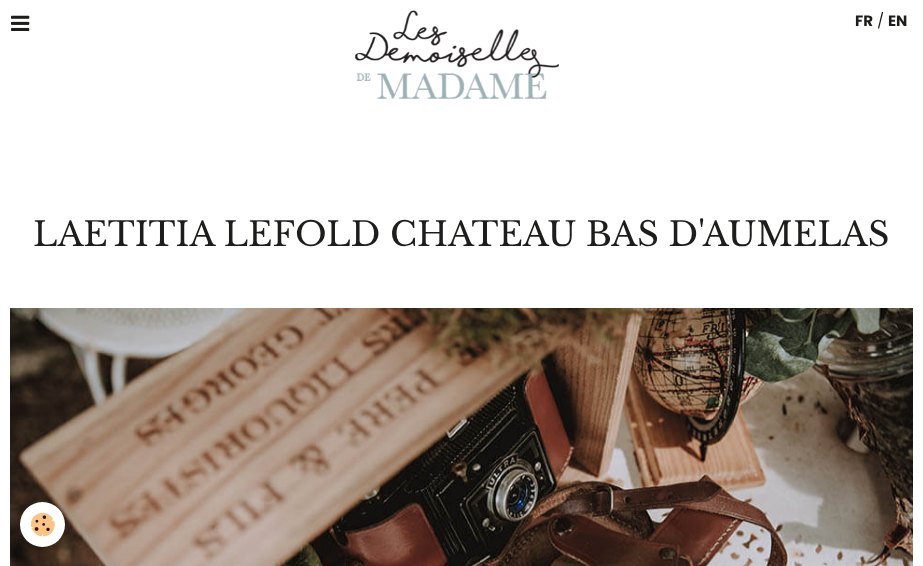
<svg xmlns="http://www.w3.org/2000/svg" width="923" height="566">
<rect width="100%" height="100%" fill="#fff"/>
<image x="11" y="15" width="19" height="16" href="media/1.png"/>
<image x="354" y="10" width="205" height="89" href="media/2.png"/>
<text x="855" y="26" style="font-family:Poppins;font-size:15px;font-weight:bold;fill:#1d1d1b">FR</text>
<text x="877" y="26" style="font-family:Poppins;font-size:15px;fill:#1d1d1b">/</text>
<text x="888" y="26" style="font-family:Poppins;font-size:15px;font-weight:bold;fill:#1d1d1b">EN</text>
<text x="33" y="246" style="font-family:Libre Baskerville;font-size:33.6px;fill:#1d1d1b">LAETITIA LEFOLD CHATEAU BAS D'AUMELAS</text>
<image x="10" y="308" width="903" height="258" href="media/3.png"/>
<rect x="20" y="505" width="45" height="45" rx="22.5" fill="#0000003d" filter="blur(5px)"/>
<circle cx="42.5" cy="524.5" r="22.5" fill="#fff"/>
<image x="30" y="512" width="25" height="25" href="media/4.png"/>
</svg>
